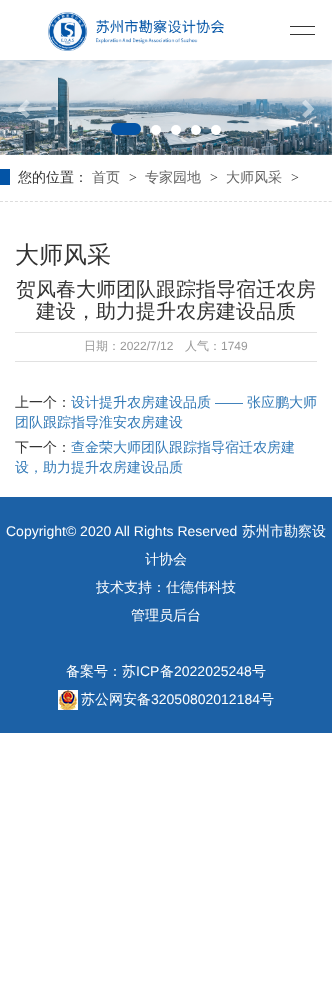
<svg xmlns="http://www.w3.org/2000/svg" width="332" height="1007">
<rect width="100%" height="100%" fill="#fff"/>
<image x="48" y="12" width="176" height="39" href="media/1.png"/>
<rect x="290" y="26" width="25" height="1" fill="#333"/>
<rect x="290" y="34" width="25" height="1" fill="#333"/>
<image x="0" y="60" width="332" height="95" href="media/2.png"/>
<path d="M30 103l-6 6l6 6l-3.5 3l-9-9l9-9.5z" fill="#ffffff80"/>
<path d="M314.5 109l-9 9l-3.5-3l6-6l-6-6l3.5-3.5z" fill="#ffffff80"/>
<rect x="111" y="123" width="30" height="12" rx="6" fill="#0354a6"/>
<circle cx="156" cy="130" r="5" fill="#fff"/>
<circle cx="176" cy="130" r="5" fill="#fff"/>
<circle cx="196" cy="130" r="5" fill="#fff"/>
<circle cx="216" cy="130" r="5" fill="#fff"/>
<path d="M0 201.5h332" fill="none" stroke="#dcdcdc" stroke-dasharray="3 1.98"/>
<text x="18" y="182" style="font-family:WenQuanYi Zen Hei;font-size:14px;font-weight:500;fill:#333">您的位置：</text>
<rect y="169" width="10" height="16" fill="#0354a6"/>
<text x="92" y="182" style="font-family:WenQuanYi Zen Hei;font-size:14px;font-weight:500;fill:#666">首页</text>
<text x="129" y="182" style="font-family:Liberation Serif;font-size:14px;fill:#333">&gt;</text>
<text x="145" y="182" style="font-family:WenQuanYi Zen Hei;font-size:14px;font-weight:500;fill:#666">专家园地</text>
<text x="210" y="182" style="font-family:Liberation Serif;font-size:14px;fill:#333">&gt;</text>
<text x="226" y="182" style="font-family:WenQuanYi Zen Hei;font-size:14px;font-weight:500;fill:#666">大师风采</text>
<text x="291" y="182" style="font-family:Liberation Serif;font-size:14px;fill:#333">&gt;</text>
<text x="15" y="263" style="font-family:WenQuanYi Zen Hei;font-size:24px;font-weight:500;fill:#333">大师风采</text>
<text x="16" y="296" style="font-family:WenQuanYi Zen Hei;font-size:20px;font-weight:500;fill:#333">贺风春大师团队跟踪指导宿迁农房</text>
<text x="36" y="318" style="font-family:WenQuanYi Zen Hei;font-size:20px;font-weight:500;fill:#333">建设，助力提升农房建设品质</text>
<rect x="15" y="332" width="302" height="1" fill="#e1e1e1"/>
<rect x="15" y="361" width="302" height="1" fill="#e1e1e1"/>
<text x="84" y="350" style="font-family:WenQuanYi Zen Hei;font-size:12px;font-weight:500;fill:#999">日期：</text>
<text x="120" y="350" style="font-family:Liberation Sans;font-size:12px;fill:#999">2022/7/12</text>
<text x="185" y="350" style="font-family:WenQuanYi Zen Hei;font-size:12px;font-weight:500;fill:#999">人气：</text>
<text x="221" y="350" style="font-family:Liberation Sans;font-size:12px;fill:#999">1749</text>
<text x="15" y="407" style="font-family:WenQuanYi Zen Hei;font-size:14px;font-weight:500;fill:#333">上一个：</text>
<text x="71" y="407" style="font-family:WenQuanYi Zen Hei;font-size:14px;font-weight:500;fill:#337ab7">设计提升农房建设品质</text>
<text x="215" y="407" style="font-family:Liberation Sans;font-size:14px;fill:#337ab7">——</text>
<text x="247" y="407" style="font-family:WenQuanYi Zen Hei;font-size:14px;font-weight:500;fill:#337ab7">张应鹏大师</text>
<text x="15" y="427" style="font-family:WenQuanYi Zen Hei;font-size:14px;font-weight:500;fill:#337ab7">团队跟踪指导淮安农房建设</text>
<text x="15" y="452" style="font-family:WenQuanYi Zen Hei;font-size:14px;font-weight:500;fill:#333">下一个：</text>
<text x="71" y="452" style="font-family:WenQuanYi Zen Hei;font-size:14px;font-weight:500;fill:#337ab7">查金荣大师团队跟踪指导宿迁农房建</text>
<text x="15" y="472" style="font-family:WenQuanYi Zen Hei;font-size:14px;font-weight:500;fill:#337ab7">设，助力提升农房建设品质</text>
<rect y="497" width="332" height="236" fill="#1c61a6"/>
<text x="6" y="536" style="font-family:Liberation Sans;font-size:14px;fill:#fff">Copyright© 2020 All Rights Reserved</text>
<text x="242" y="536" style="font-family:WenQuanYi Zen Hei;font-size:14px;font-weight:500;fill:#fff">苏州市勘察设</text>
<text x="145" y="564" style="font-family:WenQuanYi Zen Hei;font-size:14px;font-weight:500;fill:#fff">计协会</text>
<text x="96" y="592" style="font-family:WenQuanYi Zen Hei;font-size:14px;font-weight:500;fill:#fff">技术支持：仕德伟科技</text>
<text x="131" y="620" style="font-family:WenQuanYi Zen Hei;font-size:14px;font-weight:500;fill:#fff">管理员后台</text>
<text x="66" y="676" style="font-family:WenQuanYi Zen Hei;font-size:14px;font-weight:500;fill:#fff">备案号：苏</text>
<text x="136" y="676" style="font-family:Liberation Sans;font-size:14px;fill:#fff">ICP</text>
<text x="160" y="676" style="font-family:WenQuanYi Zen Hei;font-size:14px;font-weight:500;fill:#fff">备</text>
<text x="174" y="676" style="font-family:Liberation Sans;font-size:14px;fill:#fff">2022025248</text>
<text x="252" y="676" style="font-family:WenQuanYi Zen Hei;font-size:14px;font-weight:500;fill:#fff">号</text>
<image x="58" y="690" width="20" height="20" href="media/3.png"/>
<text x="81" y="704" style="font-family:WenQuanYi Zen Hei;font-size:14px;font-weight:500;fill:#fff">苏公网安备</text>
<text x="151" y="704" style="font-family:Liberation Sans;font-size:14px;fill:#fff">32050802012184</text>
<text x="260" y="704" style="font-family:WenQuanYi Zen Hei;font-size:14px;font-weight:500;fill:#fff">号</text>
</svg>
